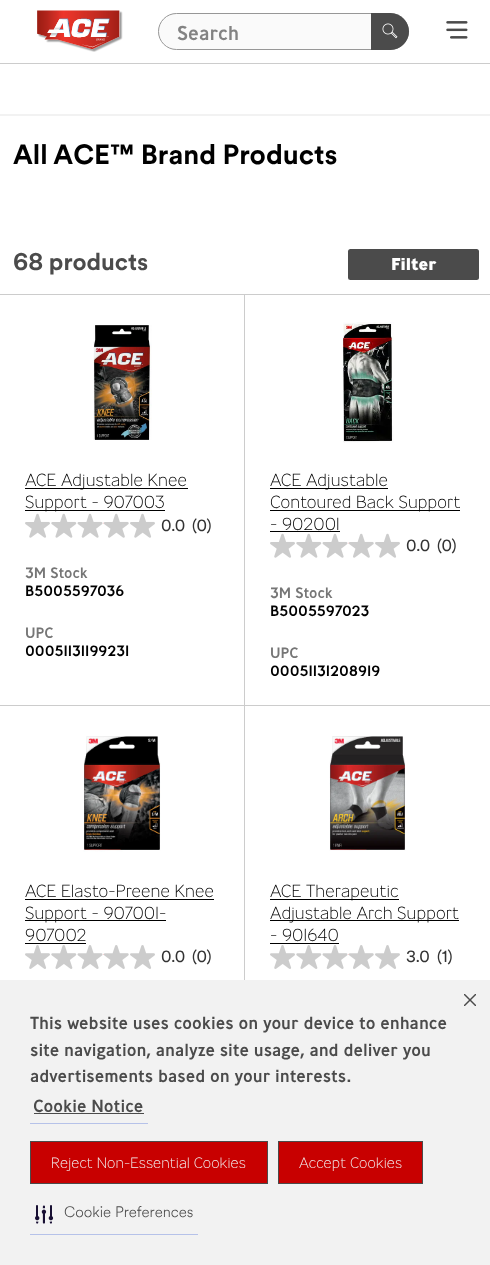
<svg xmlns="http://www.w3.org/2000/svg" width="490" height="1265">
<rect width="100%" height="100%" fill="#fff"/>
<rect y="114" width="490" height="2" fill="#f2f2f2"/>
<image x="37" y="10" width="86" height="42" href="media/1.png"/>
<rect x="158.5" y="13.5" width="250" height="36" rx="18" fill="#fafafa" stroke="#979797"/>
<text x="177" y="40" style="font-family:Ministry;font-size:20px;font-weight:500;fill:#838383">Search</text>
<path d="M371 13h19.5c10 0 18.5 8.5 18.5 18.5c0 10-8.5 18.5-18.5 18.5h-19.5z" fill="#4b4b4b"/>
<image x="382" y="23" width="16" height="16" href="media/2.png"/>
<image x="446" y="21" width="22" height="18" href="media/3.png"/>
<rect y="63" width="490" height="1" fill="#ccc"/>
<text x="13" y="164" style="font-family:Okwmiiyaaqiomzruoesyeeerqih;font-size:27.5px;font-weight:bold;fill:#000">All ACE™ Brand Products</text>
<text x="13" y="270" style="font-family:Okwmiiyaaqiomzruoesyeeerqih;font-size:23.75px;font-weight:bold;fill:#4b4b4b">68 products</text>
<rect x="348" y="249" width="131" height="31" rx="2.5" fill="#4b4b4b"/>
<text x="391" y="270" style="font-family:Ministry;font-size:17px;font-weight:800;fill:#fff">Filter</text>
<rect y="294" width="490" height="1" fill="#ccc"/>
<rect x="244" y="295" width="1" height="685" fill="#ccc"/>
<rect y="705" width="490" height="1" fill="#ccc"/>
<image x="93" y="325" width="59" height="115" href="media/4.png"/>
<rect x="25" y="488" width="163" height="1" fill="#000"/>
<text x="25" y="486" style="font-family:Ministry;font-size:17.5px;font-weight:200;fill:#000">ACE Adjustable Knee</text>
<rect x="25" y="510" width="140" height="1" fill="#000"/>
<text x="25" y="508" style="font-family:Ministry;font-size:17.5px;font-weight:200;fill:#000">Support - 907003</text>
<image x="25" y="513" width="25" height="25" href="media/5.png"/>
<image x="51" y="513" width="26" height="25" href="media/6.png"/>
<image x="77" y="513" width="26" height="25" href="media/7.png"/>
<image x="103" y="513" width="26" height="25" href="media/8.png"/>
<image x="130" y="513" width="25" height="25" href="media/5.png"/>
<text x="161" y="531" style="font-family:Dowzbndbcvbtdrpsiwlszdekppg;font-size:16px;fill:#333">0.0</text>
<text x="192" y="531" style="font-family:Dowzbndbcvbtdrpsiwlszdekppg;font-size:16px;fill:#333">(0)</text>
<text x="25" y="578" style="font-family:Ministry;font-size:15px;font-weight:500;fill:#767676">3M Stock</text>
<text x="25" y="596" style="font-family:Ministry;font-size:15px;font-weight:500;fill:#000">B5005597036</text>
<text x="25" y="638" style="font-family:Ministry;font-size:15px;font-weight:500;fill:#767676">UPC</text>
<text x="25" y="656" style="font-family:Ministry;font-size:15px;font-weight:500;fill:#000">00051131199231</text>
<image x="343" y="322" width="51" height="121" href="media/9.png"/>
<rect x="270" y="488" width="118" height="1" fill="#000"/>
<text x="270" y="486" style="font-family:Ministry;font-size:17.5px;font-weight:200;fill:#000">ACE Adjustable</text>
<rect x="270" y="510" width="190" height="1" fill="#000"/>
<text x="270" y="508" style="font-family:Ministry;font-size:17.5px;font-weight:200;fill:#000">Contoured Back Support</text>
<text x="270" y="530" style="font-family:Ministry;font-size:17.5px;font-weight:200;fill:#000">- 902001</text>
<rect x="270" y="531" width="70" height="1" fill="#000"/>
<image x="270" y="533" width="25" height="25" href="media/5.png"/>
<image x="296" y="533" width="26" height="25" href="media/6.png"/>
<image x="322" y="533" width="26" height="25" href="media/7.png"/>
<image x="348" y="533" width="26" height="25" href="media/8.png"/>
<image x="375" y="533" width="25" height="25" href="media/5.png"/>
<text x="406" y="551" style="font-family:Dowzbndbcvbtdrpsiwlszdekppg;font-size:16px;fill:#333">0.0</text>
<text x="437" y="551" style="font-family:Dowzbndbcvbtdrpsiwlszdekppg;font-size:16px;fill:#333">(0)</text>
<text x="270" y="598" style="font-family:Ministry;font-size:15px;font-weight:500;fill:#767676">3M Stock</text>
<text x="270" y="616" style="font-family:Ministry;font-size:15px;font-weight:500;fill:#000">B5005597023</text>
<text x="270" y="658" style="font-family:Ministry;font-size:15px;font-weight:500;fill:#767676">UPC</text>
<text x="270" y="676" style="font-family:Ministry;font-size:15px;font-weight:500;fill:#000">00051131208919</text>
<image x="83" y="736" width="78" height="116" href="media/10.png"/>
<text x="25" y="897" style="font-family:Ministry;font-size:17.5px;font-weight:200;fill:#000">ACE Elasto-Preene Knee</text>
<rect x="25" y="899" width="189" height="1" fill="#000"/>
<rect x="25" y="920" width="141" height="1" fill="#000"/>
<text x="25" y="919" style="font-family:Ministry;font-size:17.5px;font-weight:200;fill:#000">Support - 907001-</text>
<text x="25" y="941" style="font-family:Ministry;font-size:17.5px;font-weight:200;fill:#000">907002</text>
<rect x="25" y="943" width="61" height="1" fill="#000"/>
<image x="25" y="945" width="25" height="24" href="media/11.png"/>
<image x="51" y="945" width="26" height="24" href="media/12.png"/>
<image x="77" y="945" width="26" height="24" href="media/13.png"/>
<image x="103" y="945" width="26" height="24" href="media/14.png"/>
<image x="130" y="945" width="25" height="24" href="media/11.png"/>
<text x="161" y="962" style="font-family:Dowzbndbcvbtdrpsiwlszdekppg;font-size:16px;fill:#333">0.0</text>
<text x="192" y="962" style="font-family:Dowzbndbcvbtdrpsiwlszdekppg;font-size:16px;fill:#333">(0)</text>
<image x="329" y="736" width="77" height="115" href="media/15.png"/>
<rect x="270" y="899" width="129" height="1" fill="#000"/>
<text x="270" y="897" style="font-family:Ministry;font-size:17.5px;font-weight:200;fill:#000">ACE Therapeutic</text>
<rect x="270" y="920" width="189" height="1" fill="#000"/>
<text x="270" y="919" style="font-family:Ministry;font-size:17.5px;font-weight:200;fill:#000">Adjustable Arch Support</text>
<text x="270" y="941" style="font-family:Ministry;font-size:17.5px;font-weight:200;fill:#000">- 901640</text>
<rect x="270" y="943" width="69" height="1" fill="#000"/>
<image x="270" y="945" width="25" height="24" href="media/11.png"/>
<image x="296" y="945" width="26" height="24" href="media/12.png"/>
<image x="322" y="945" width="26" height="24" href="media/13.png"/>
<image x="348" y="945" width="26" height="24" href="media/14.png"/>
<image x="375" y="945" width="25" height="24" href="media/11.png"/>
<text x="406" y="962" style="font-family:Dowzbndbcvbtdrpsiwlszdekppg;font-size:16px;fill:#333">3.0</text>
<text x="437" y="962" style="font-family:Dowzbndbcvbtdrpsiwlszdekppg;font-size:16px;fill:#333">(1)</text>
<rect y="980" width="490" height="285" fill="#f2f2f2"/>
<text x="30" y="1029" style="font-family:Ministry;font-size:17.5px;font-weight:500;fill:#4b4b4b">This website uses cookies on your device to enhance</text>
<text x="30" y="1056" style="font-family:Ministry;font-size:17.5px;font-weight:500;fill:#4b4b4b">site navigation, analyze site usage, and deliver you</text>
<text x="30" y="1082" style="font-family:Ministry;font-size:17.5px;font-weight:500;fill:#4b4b4b">advertisements based on your interests.</text>
<rect x="30" y="1123" width="118" height="1" fill="#b6c2e9"/>
<text x="33" y="1112" style="font-family:Ministry;font-size:17.5px;font-weight:500;fill:#4b4b4b">Cookie Notice</text>
<rect x="34" y="1113" width="110" height="1" fill="#4b4b4b"/>
<image x="464" y="994" width="12" height="12" href="media/16.png"/>
<rect x="30.5" y="1141.5" width="237" height="42" fill="#c80000" stroke="#4b4b4b"/>
<text x="51" y="1168" style="font-family:Ministry;font-size:15px;font-weight:200;fill:#f2f2f2">Reject Non-Essential Cookies</text>
<rect x="278.5" y="1141.5" width="144" height="42" fill="#c80000" stroke="#4b4b4b"/>
<text x="299" y="1168" style="font-family:Ministry;font-size:15px;font-weight:200;fill:#f2f2f2">Accept Cookies</text>
<rect x="30" y="1234" width="168" height="1" fill="#b6c2e9"/>
<image x="35" y="1205" width="19" height="19" href="media/17.png"/>
<text x="64" y="1217" style="font-family:'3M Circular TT';font-size:15px;font-weight:300;fill:#4b4b4b">Cookie Preferences</text>
</svg>
